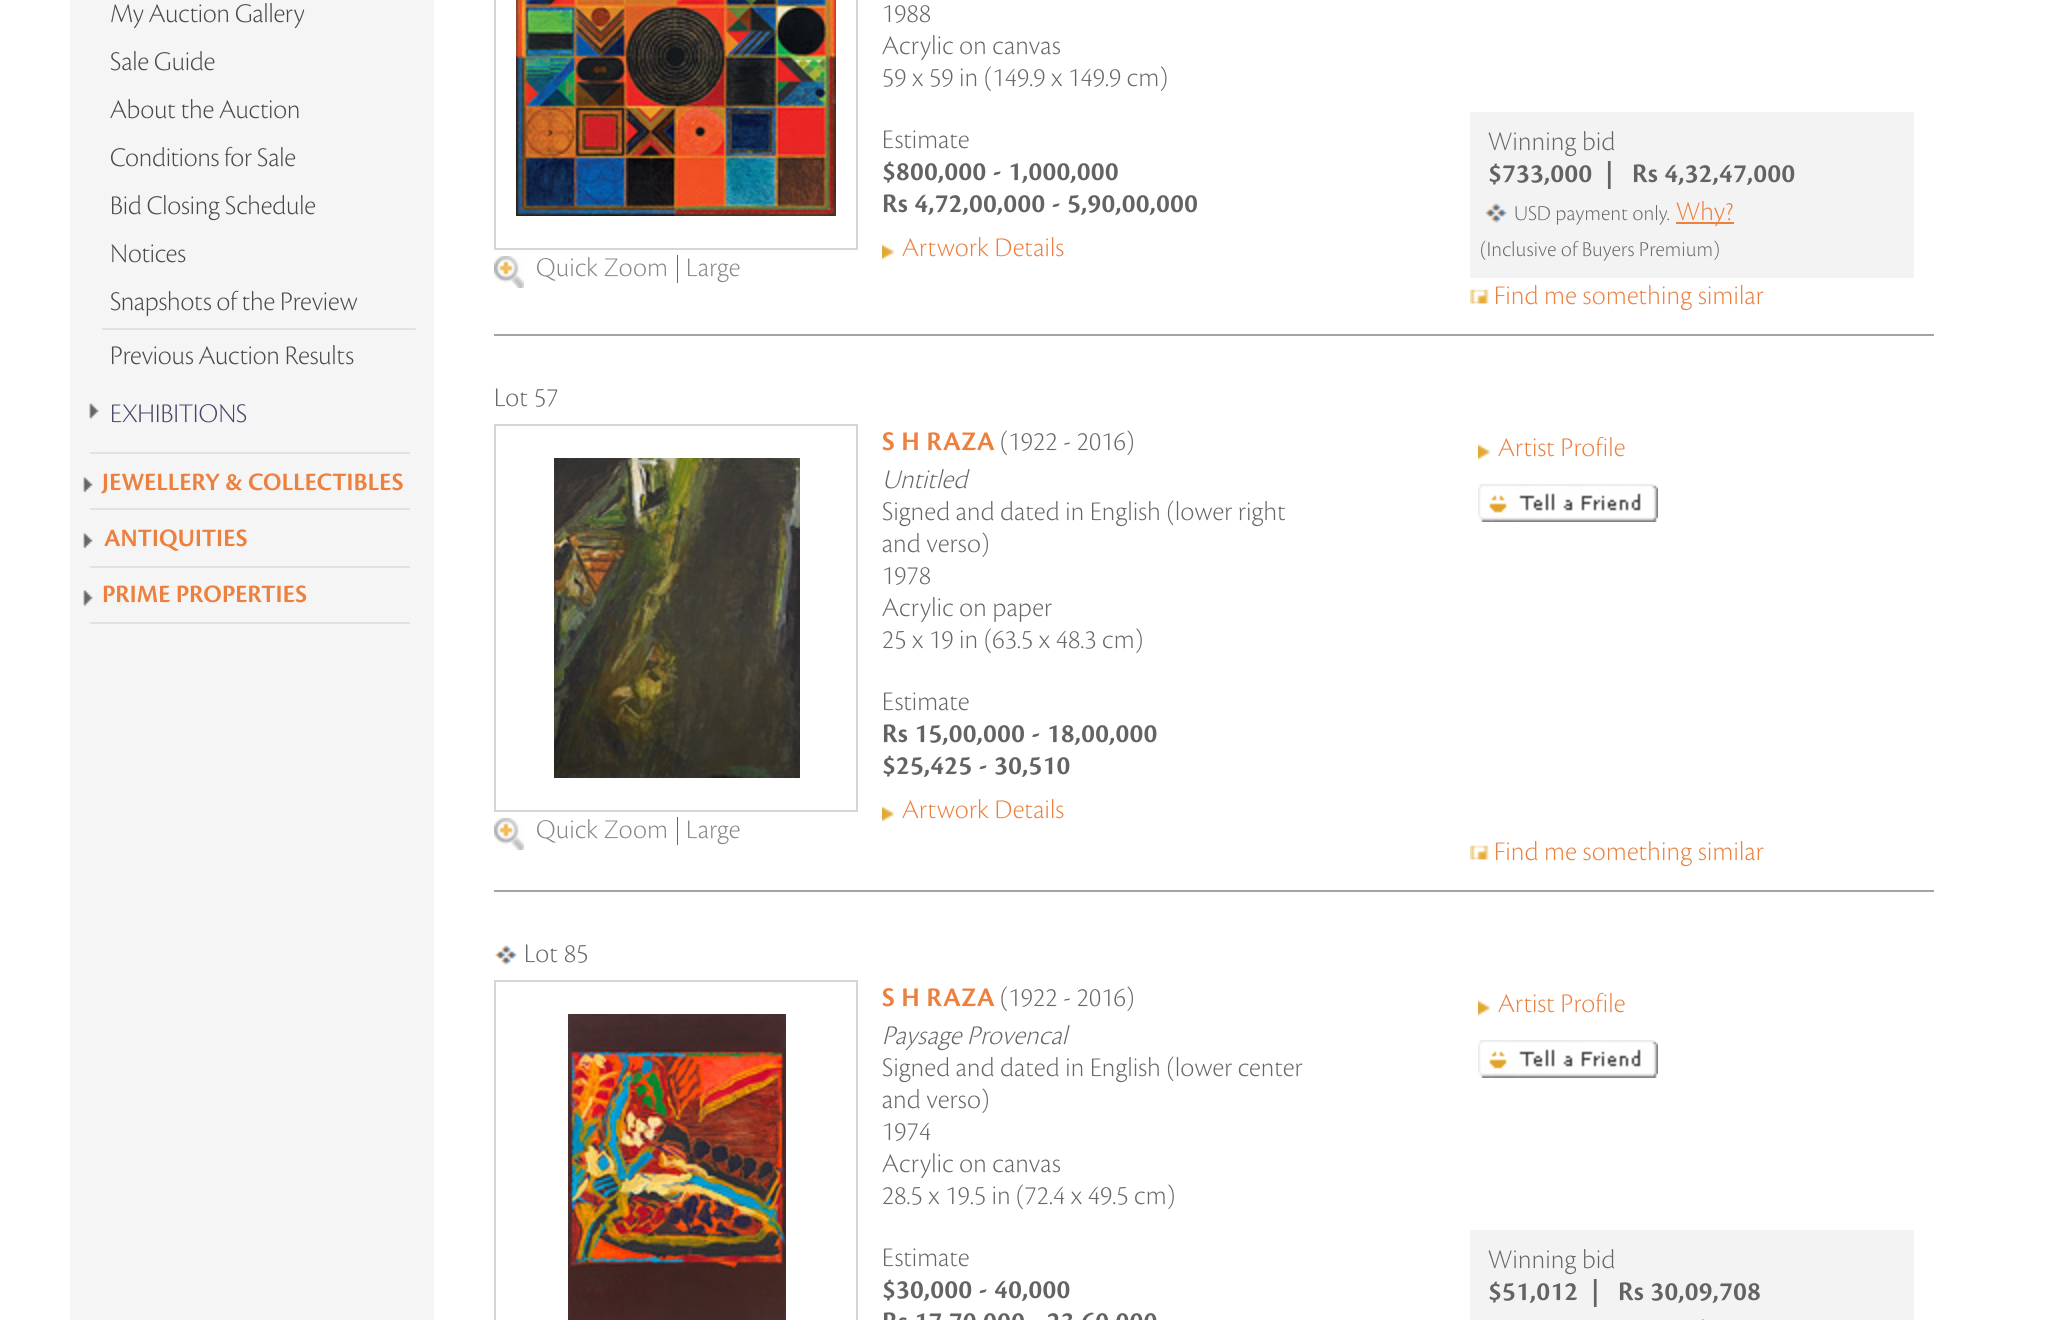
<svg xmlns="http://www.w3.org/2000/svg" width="2066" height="1320">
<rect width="100%" height="100%" fill="#fff"/>
<rect x="70" width="364" height="1320" fill="#f5f5f5"/>
<image x="111" y="3" width="194" height="26" href="media/1.png"/>
<image x="110" y="51" width="105" height="20" href="media/2.png"/>
<image x="110" y="99" width="189" height="20" href="media/3.png"/>
<image x="111" y="146" width="185" height="21" href="media/4.png"/>
<image x="111" y="195" width="205" height="26" href="media/5.png"/>
<image x="111" y="244" width="75" height="19" href="media/6.png"/>
<image x="110" y="290" width="248" height="26" href="media/7.png"/>
<image x="102" y="328" width="315" height="2" href="media/8.png"/>
<image x="111" y="345" width="243" height="20" href="media/9.png"/>
<image x="89" y="403" width="10" height="16" href="media/10.png"/>
<image x="111" y="404" width="136" height="19" href="media/11.png"/>
<image x="89" y="452" width="321" height="2" href="media/12.png"/>
<image x="83" y="477" width="10" height="16" href="media/13.png"/>
<image x="101" y="473" width="302" height="21" href="media/14.png"/>
<image x="89" y="508" width="321" height="2" href="media/12.png"/>
<image x="83" y="533" width="10" height="16" href="media/13.png"/>
<image x="104" y="529" width="143" height="22" href="media/15.png"/>
<image x="89" y="566" width="321" height="2" href="media/12.png"/>
<image x="83" y="590" width="10" height="16" href="media/16.png"/>
<image x="103" y="585" width="204" height="18" href="media/17.png"/>
<image x="89" y="622" width="321" height="2" href="media/12.png"/>
<rect x="495" y="-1" width="362" height="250" fill="none" stroke="#d6d6d6" stroke-width="2"/>
<image x="516" y="0" width="320" height="216" href="media/18.png"/>
<image x="494" y="256" width="30" height="32" href="media/19.png"/>
<image x="537" y="257" width="129" height="24" href="media/20.png"/>
<rect x="677" y="255" width="1" height="28" fill="#666"/>
<image x="687" y="258" width="53" height="25" href="media/21.png"/>
<image x="883" y="5" width="47" height="18" href="media/22.png"/>
<image x="882" y="35" width="178" height="26" href="media/23.png"/>
<image x="883" y="68" width="94" height="19" href="media/24.png"/>
<image x="985" y="66" width="182" height="26" href="media/25.png"/>
<image x="883" y="130" width="86" height="19" href="media/26.png"/>
<image x="883" y="161" width="235" height="22" href="media/27.png"/>
<image x="883" y="194" width="314" height="21" href="media/28.png"/>
<image x="882" y="244" width="12" height="16" href="media/29.png"/>
<image x="902" y="237" width="162" height="20" href="media/30.png"/>
<rect x="1470" y="112" width="444" height="166" fill="#f3f3f3"/>
<image x="1488" y="131" width="127" height="26" href="media/31.png"/>
<image x="1489" y="161" width="122" height="28" href="media/32.png"/>
<image x="1633" y="164" width="162" height="21" href="media/33.png"/>
<image x="1485" y="203" width="22" height="20" href="media/34.png"/>
<image x="1515" y="205" width="154" height="20" href="media/35.png"/>
<rect x="1676" y="222" width="58" height="2" fill="#ec803f"/>
<image x="1676" y="201" width="57" height="26" href="media/36.png"/>
<image x="1481" y="240" width="238" height="21" href="media/37.png"/>
<image x="1470" y="289" width="19" height="15" href="media/38.png"/>
<image x="1495" y="285" width="269" height="26" href="media/39.png"/>
<rect x="494" y="334" width="1440" height="2" fill="#a6a3a3"/>
<image x="495" y="388" width="33" height="19" href="media/40.png"/>
<image x="535" y="389" width="23" height="18" href="media/41.png"/>
<rect x="495" y="425" width="362" height="386" fill="none" stroke="#d6d6d6" stroke-width="2"/>
<image x="554" y="458" width="246" height="320" href="media/42.png"/>
<image x="494" y="818" width="30" height="32" href="media/19.png"/>
<image x="537" y="819" width="129" height="24" href="media/20.png"/>
<rect x="677" y="817" width="1" height="28" fill="#666"/>
<image x="687" y="820" width="53" height="25" href="media/21.png"/>
<image x="882" y="432" width="113" height="19" href="media/43.png"/>
<image x="1001" y="430" width="132" height="26" href="media/44.png"/>
<image x="885" y="469" width="85" height="20" href="media/45.png"/>
<image x="882" y="500" width="404" height="27" href="media/46.png"/>
<image x="882" y="532" width="106" height="25" href="media/47.png"/>
<image x="883" y="567" width="47" height="18" href="media/48.png"/>
<image x="882" y="597" width="170" height="26" href="media/49.png"/>
<image x="883" y="630" width="94" height="19" href="media/50.png"/>
<image x="985" y="628" width="157" height="26" href="media/51.png"/>
<image x="1478" y="444" width="12" height="16" href="media/29.png"/>
<image x="1498" y="436" width="127" height="21" href="media/52.png"/>
<image x="1478" y="484" width="180" height="38" href="media/53.png"/>
<image x="883" y="692" width="86" height="19" href="media/26.png"/>
<image x="883" y="724" width="274" height="21" href="media/54.png"/>
<image x="883" y="755" width="187" height="22" href="media/55.png"/>
<image x="882" y="806" width="12" height="16" href="media/29.png"/>
<image x="902" y="799" width="162" height="20" href="media/30.png"/>
<image x="1470" y="845" width="19" height="15" href="media/38.png"/>
<image x="1495" y="841" width="269" height="26" href="media/39.png"/>
<rect x="494" y="890" width="1440" height="2" fill="#a6a3a3"/>
<image x="495" y="945" width="22" height="20" href="media/56.png"/>
<image x="525" y="944" width="33" height="19" href="media/40.png"/>
<image x="564" y="945" width="24" height="18" href="media/57.png"/>
<rect x="495" y="981" width="362" height="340" fill="none" stroke="#d6d6d6" stroke-width="2"/>
<image x="568" y="1014" width="218" height="306" href="media/58.png"/>
<image x="882" y="988" width="113" height="19" href="media/43.png"/>
<image x="1001" y="986" width="132" height="26" href="media/44.png"/>
<image x="884" y="1025" width="186" height="26" href="media/59.png"/>
<image x="882" y="1056" width="421" height="27" href="media/60.png"/>
<image x="882" y="1088" width="106" height="25" href="media/47.png"/>
<image x="883" y="1122" width="48" height="19" href="media/61.png"/>
<image x="882" y="1153" width="178" height="26" href="media/23.png"/>
<image x="883" y="1186" width="126" height="19" href="media/62.png"/>
<image x="1017" y="1184" width="157" height="26" href="media/63.png"/>
<image x="1478" y="1000" width="12" height="16" href="media/29.png"/>
<image x="1498" y="992" width="127" height="21" href="media/52.png"/>
<image x="1478" y="1040" width="180" height="38" href="media/53.png"/>
<image x="883" y="1248" width="86" height="19" href="media/26.png"/>
<image x="883" y="1279" width="187" height="22" href="media/64.png"/>
<image x="883" y="1312" width="274" height="8" href="media/65.png"/>
<rect x="1470" y="1230" width="444" height="90" fill="#f3f3f3"/>
<image x="1488" y="1249" width="127" height="26" href="media/31.png"/>
<image x="1489" y="1279" width="108" height="28" href="media/66.png"/>
<image x="1619" y="1282" width="141" height="21" href="media/67.png"/>
<image x="1702" y="1319" width="2" height="1" href="media/68.png"/>
</svg>
